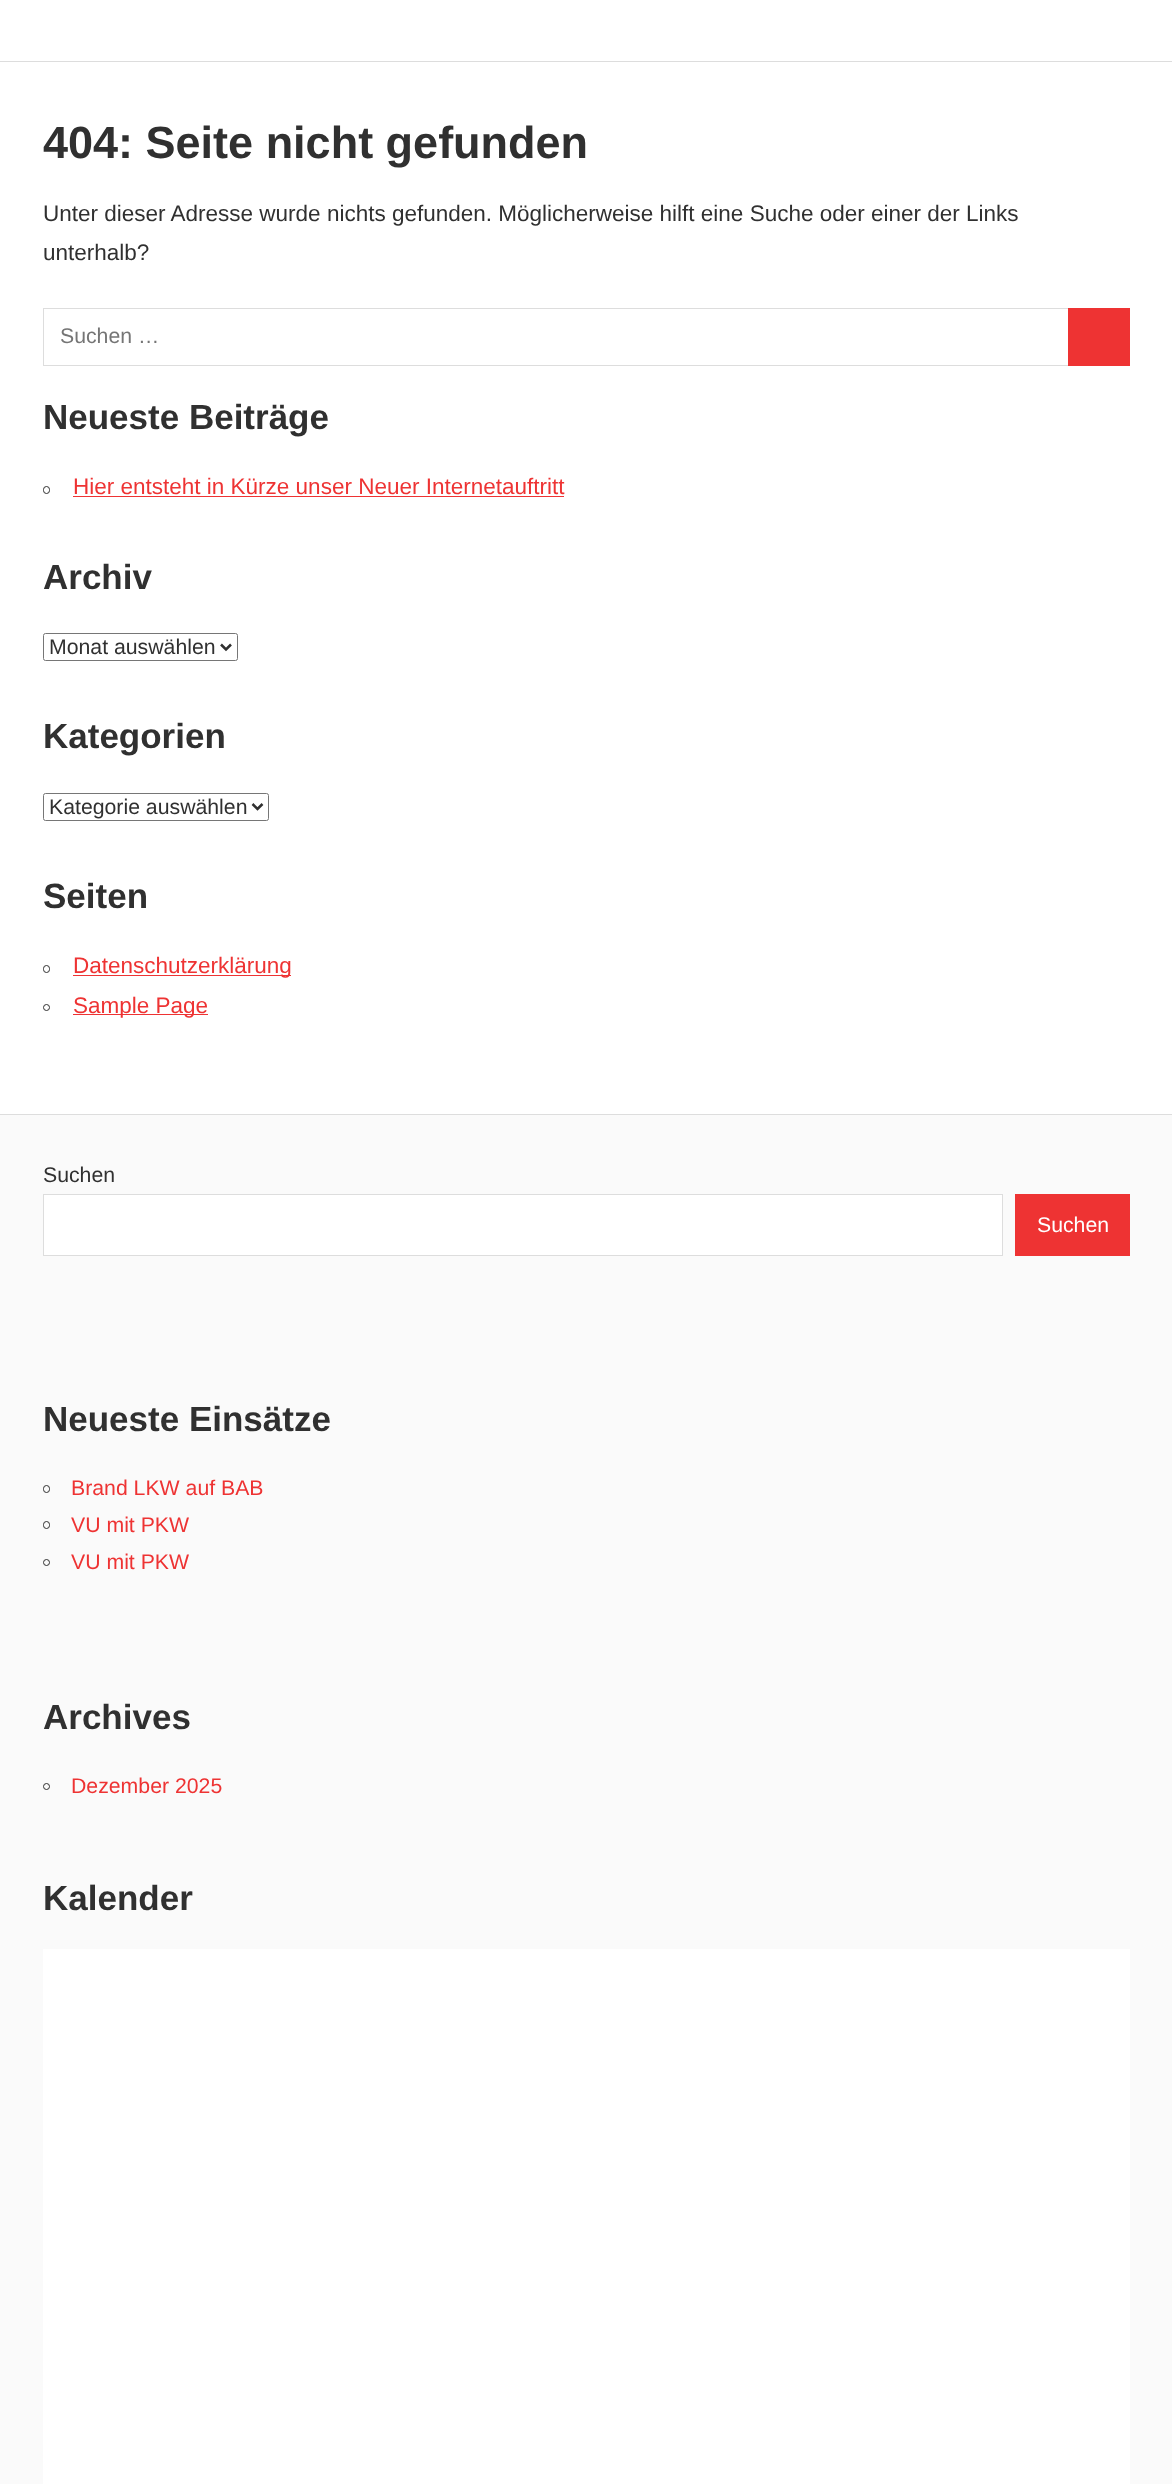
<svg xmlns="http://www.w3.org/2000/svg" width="1172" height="2484">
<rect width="100%" height="100%" fill="#fff"/>
<rect y="61" width="1172" height="1" fill="#ddd"/>
<text x="43" y="158" style="font-family:Liberation Sans;font-size:45px;font-weight:bold;fill:#303030">404: Seite nicht gefunden</text>
<text x="43" y="221" style="font-family:Liberation Sans;font-size:22.5px;fill:#303030">Unter dieser Adresse wurde nichts gefunden. Möglicherweise hilft eine Suche oder einer der Links</text>
<text x="43" y="260" style="font-family:Liberation Sans;font-size:22.5px;fill:#303030">unterhalb?</text>
<rect x="43.5" y="308.5" width="1025" height="57" fill="none" stroke="#ddd"/>
<text x="60" y="343" style="font-family:Liberation Sans;font-size:21.25px;fill:#757575">Suchen …</text>
<rect x="1068" y="308" width="62" height="58" fill="#e33"/>
<text x="43" y="429" style="font-family:Liberation Sans;font-size:35px;font-weight:bold;fill:#303030">Neueste Beiträge</text>
<rect x="43.5" y="486.5" width="6" height="7" rx="3" fill="none" stroke="#303030"/>
<text x="73" y="494" style="font-family:Liberation Sans;font-size:22.5px;fill:#e33">Hier entsteht in Kürze unser Neuer Internetauftritt</text>
<rect x="73" y="496" width="491" height="1" fill="#e33"/>
<text x="43" y="589" style="font-family:Liberation Sans;font-size:35px;font-weight:bold;fill:#303030">Archiv</text>
<rect x="43.5" y="633.5" width="194" height="27" rx="2" fill="none" stroke="#767676"/>
<path d="M221 644.5l5 5l5-5" fill="none" stroke="#303030" stroke-width="2.5"/>
<text x="49" y="654" style="font-family:Liberation Sans;font-size:21.25px;fill:#303030">Monat auswählen</text>
<text x="43" y="748" style="font-family:Liberation Sans;font-size:35px;font-weight:bold;fill:#303030">Kategorien</text>
<rect x="43.5" y="793.5" width="225" height="27" rx="2" fill="none" stroke="#767676"/>
<path d="M252.5 804l5 5l5-5" fill="none" stroke="#303030" stroke-width="2.5"/>
<text x="49" y="814" style="font-family:Liberation Sans;font-size:21.25px;fill:#303030">Kategorie auswählen</text>
<text x="43" y="908" style="font-family:Liberation Sans;font-size:35px;font-weight:bold;fill:#303030">Seiten</text>
<rect x="43.5" y="965.5" width="6" height="7" rx="3" fill="none" stroke="#303030"/>
<rect x="73" y="975" width="218" height="1" fill="#e33"/>
<text x="73" y="973" style="font-family:Liberation Sans;font-size:22.5px;fill:#e33">Datenschutzerklärung</text>
<circle cx="46.5" cy="1007.5" r="3" fill="none" stroke="#303030"/>
<rect x="73" y="1014" width="135" height="1" fill="#e33"/>
<text x="73" y="1013" style="font-family:Liberation Sans;font-size:22.5px;fill:#e33">Sample Page</text>
<rect y="1115" width="1172" height="1369" fill="#fafafa"/>
<rect y="1114" width="1172" height="1" fill="#ddd"/>
<text x="43" y="1182" style="font-family:Liberation Sans;font-size:21.25px;fill:#303030">Suchen</text>
<rect x="43.5" y="1194.5" width="959" height="61" fill="#fff" stroke="#ddd"/>
<rect x="1015" y="1194" width="115" height="62" fill="#e33"/>
<text x="1037" y="1232" style="font-family:Liberation Sans;font-size:21.25px;fill:#fff">Suchen</text>
<text x="43" y="1431" style="font-family:Liberation Sans;font-size:35px;font-weight:bold;fill:#303030">Neueste Einsätze</text>
<rect x="43.5" y="1485.5" width="6" height="7" rx="3" fill="none" stroke="#303030"/>
<text x="71" y="1495" style="font-family:Liberation Sans;font-size:21.25px;fill:#e33">Brand LKW auf BAB</text>
<rect x="43.5" y="1521.5" width="6" height="7" rx="3" fill="none" stroke="#303030"/>
<text x="71" y="1532" style="font-family:Liberation Sans;font-size:21.25px;fill:#e33">VU mit PKW</text>
<circle cx="46.5" cy="1562.5" r="3" fill="none" stroke="#303030"/>
<text x="71" y="1569" style="font-family:Liberation Sans;font-size:21.25px;fill:#e33">VU mit PKW</text>
<text x="43" y="1729" style="font-family:Liberation Sans;font-size:35px;font-weight:bold;fill:#303030">Archives</text>
<circle cx="46.5" cy="1786.5" r="3" fill="none" stroke="#303030"/>
<text x="71" y="1793" style="font-family:Liberation Sans;font-size:21.25px;fill:#e33">Dezember 2025</text>
<text x="43" y="1910" style="font-family:Liberation Sans;font-size:35px;font-weight:bold;fill:#303030">Kalender</text>
<rect x="43" y="1949" width="1087" height="535" fill="#fff"/>
</svg>
